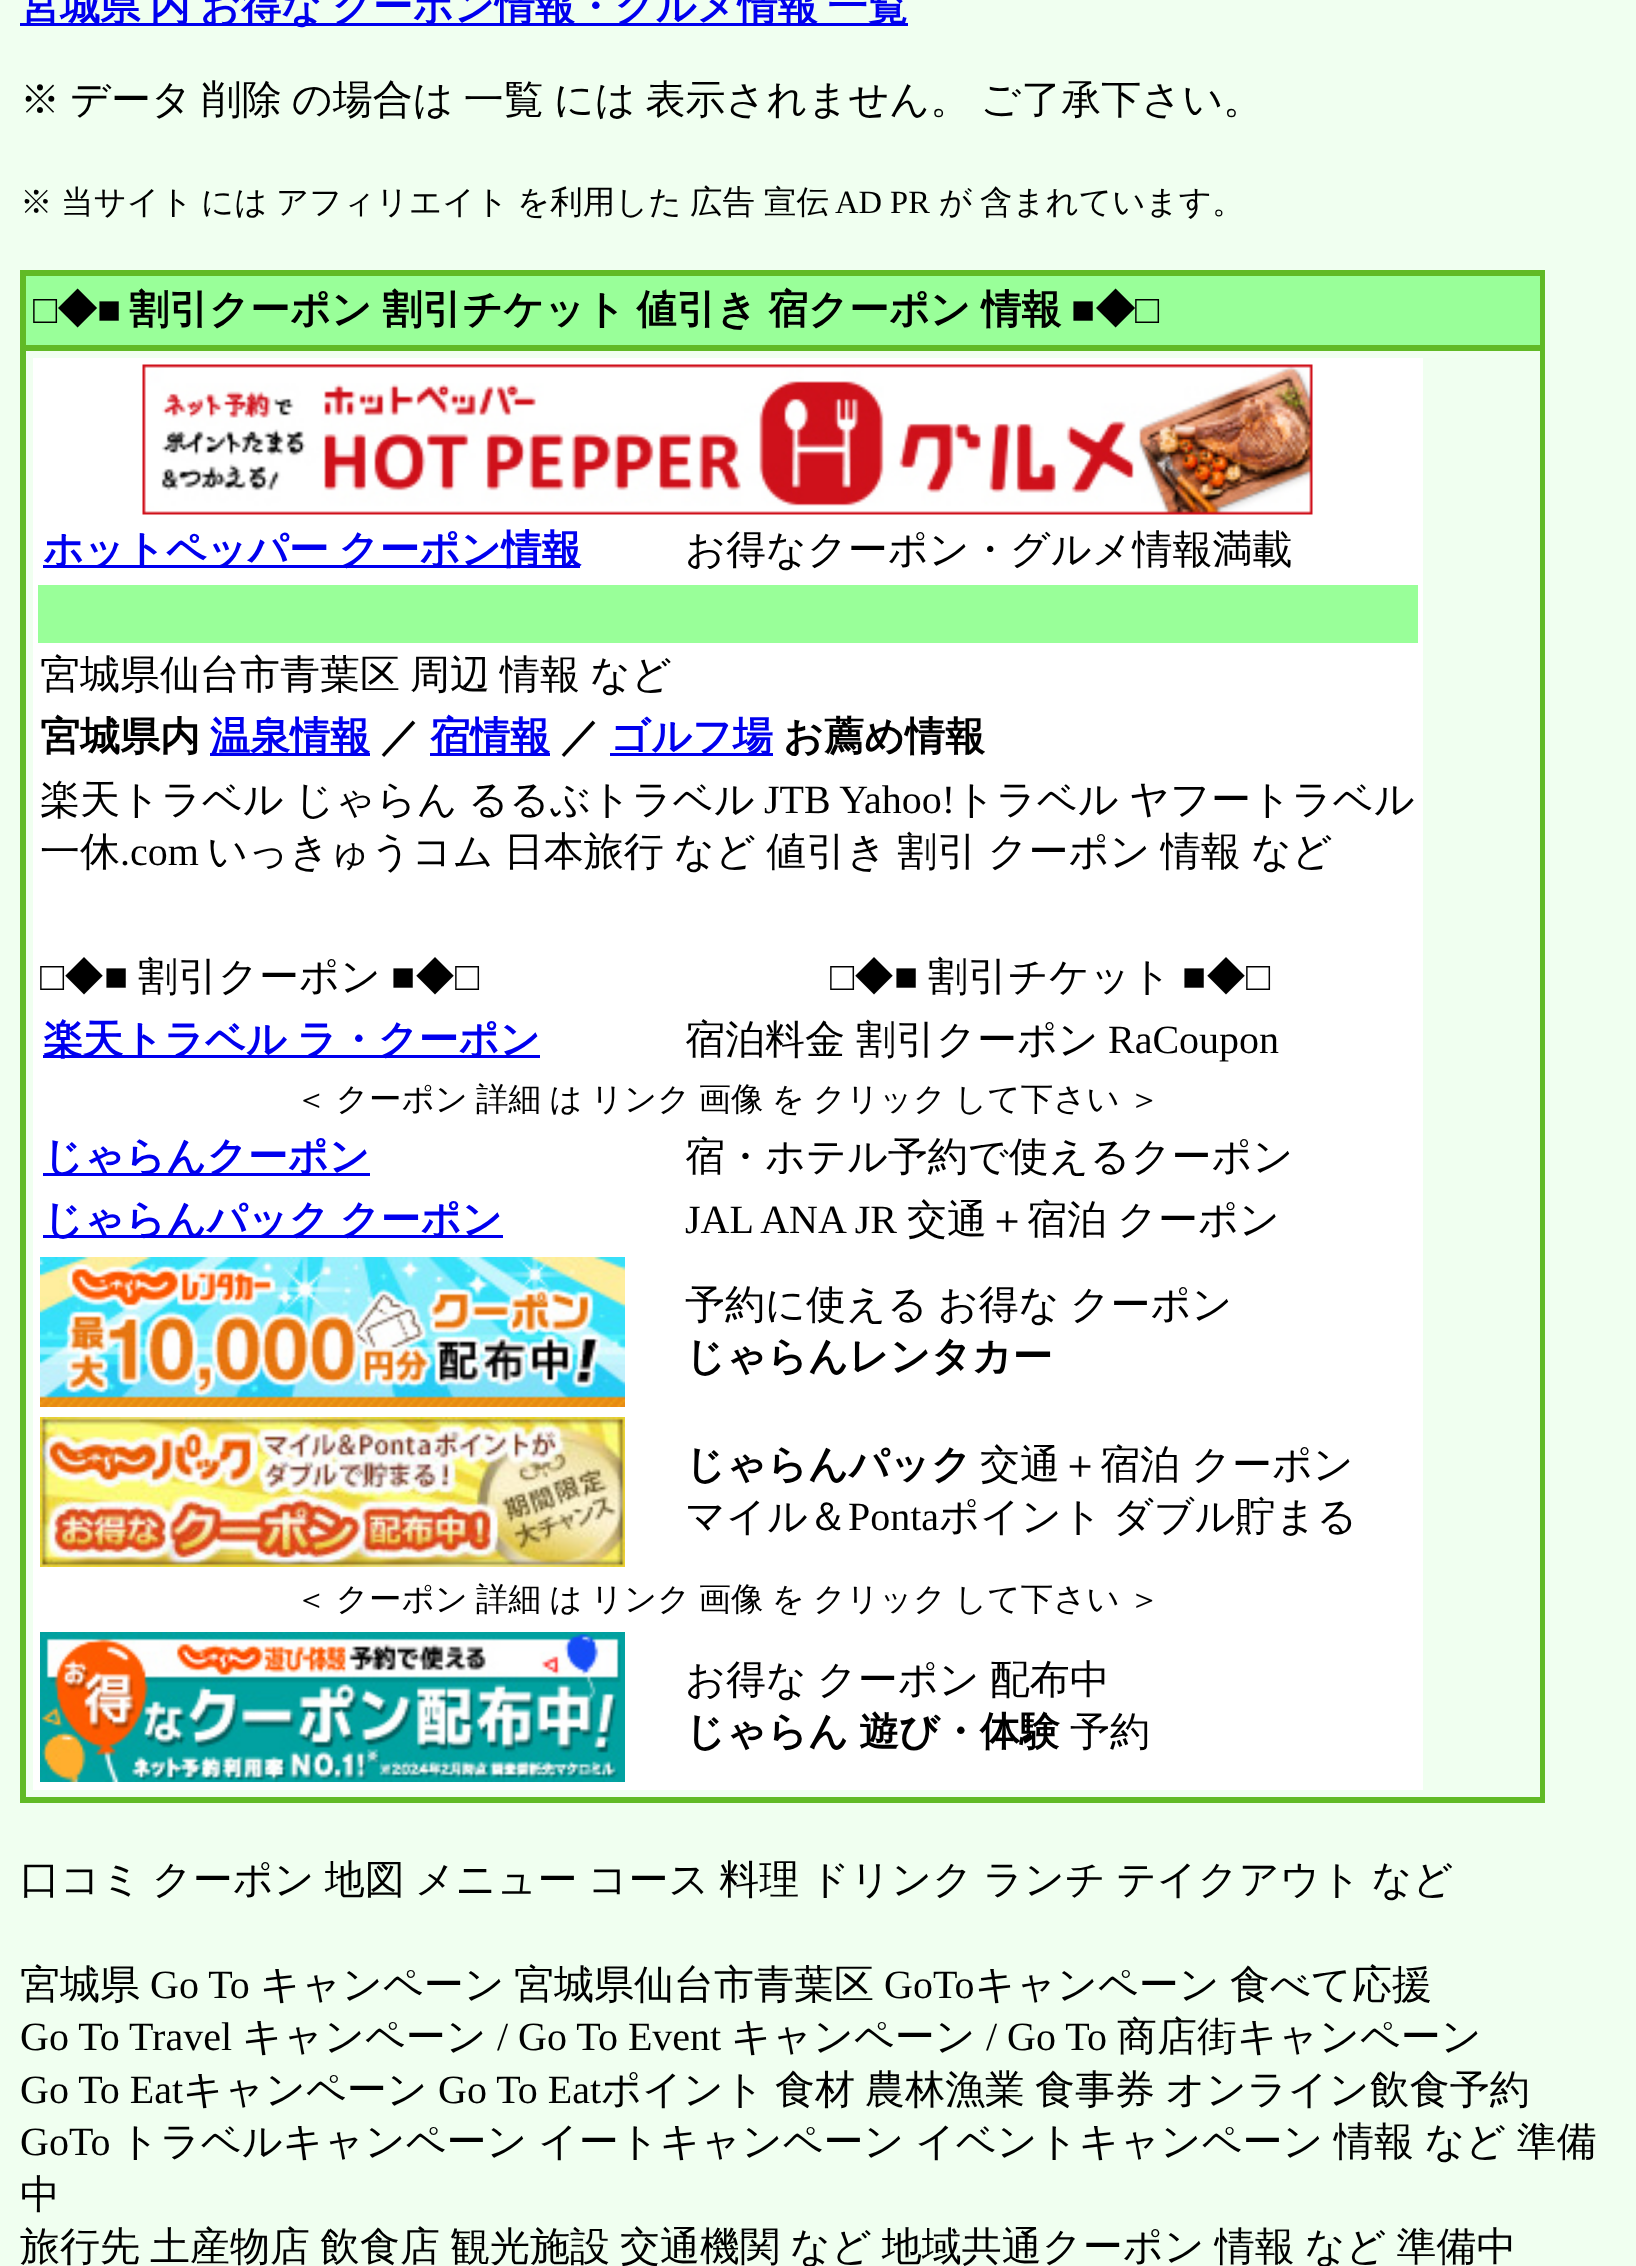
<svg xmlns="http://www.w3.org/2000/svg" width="1636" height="2266">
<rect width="100%" height="100%" fill="#f0fff0"/>
<rect x="20" y="23" width="888" height="3" fill="#00e"/>
<text x="20" y="20" word-spacing="-2" style="font-family:WenQuanYi Zen Hei;font-size:40px;font-weight:bold;fill:#00e">宮城県 内 お得な クーポン情報・グルメ情報 一覧</text>
<text x="20" y="113" word-spacing="-2" style="font-family:WenQuanYi Zen Hei;font-size:40px;font-weight:500;fill:#000">※ データ 削除 の場合は 一覧 には 表示されません。 ご了承下さい。</text>
<text x="20" y="213" style="font-family:WenQuanYi Zen Hei;font-size:32.5px;font-weight:500;fill:#000">※</text>
<text x="61" y="213" style="font-family:WenQuanYi Zen Hei;font-size:32.5px;font-weight:500;fill:#000">当サイト</text>
<text x="201" y="213" style="font-family:WenQuanYi Zen Hei;font-size:32.5px;font-weight:500;fill:#000">には</text>
<text x="276" y="213" style="font-family:WenQuanYi Zen Hei;font-size:32.5px;font-weight:500;fill:#000">アフィリエイト</text>
<text x="517" y="213" style="font-family:WenQuanYi Zen Hei;font-size:32.5px;font-weight:500;fill:#000">を利用した</text>
<text x="690" y="213" style="font-family:WenQuanYi Zen Hei;font-size:32.5px;font-weight:500;fill:#000">広告</text>
<text x="764" y="213" style="font-family:WenQuanYi Zen Hei;font-size:32.5px;font-weight:500;fill:#000">宣伝</text>
<text x="835" y="213" style="font-family:Liberation Serif;font-size:32.5px;fill:#000">AD PR</text>
<text x="939" y="213" style="font-family:WenQuanYi Zen Hei;font-size:32.5px;font-weight:500;fill:#000">が</text>
<text x="980" y="213" style="font-family:WenQuanYi Zen Hei;font-size:32.5px;font-weight:500;fill:#000">含まれています。</text>
<rect x="21.5" y="271.5" width="1522" height="1530" fill="none" stroke="#61ba26" stroke-width="3"/>
<rect x="24.5" y="274.5" width="1517" height="72" fill="#9f9" stroke="#61ba26" stroke-width="3"/>
<text x="33" y="323" style="font-family:Liberation Serif;font-size:40px;font-weight:bold;fill:#000">□</text>
<text x="57" y="323" style="font-family:WenQuanYi Zen Hei;font-size:40px;font-weight:bold;fill:#000">◆</text>
<text x="97" y="323" style="font-family:Liberation Serif;font-size:40px;font-weight:bold;fill:#000">■</text>
<text x="129" y="323" word-spacing="-1.5" style="font-family:WenQuanYi Zen Hei;font-size:40px;font-weight:bold;fill:#000">割引クーポン 割引チケット 値引き 宿クーポン 情報</text>
<text x="1071" y="323" style="font-family:Liberation Serif;font-size:40px;font-weight:bold;fill:#000">■</text>
<text x="1095" y="323" style="font-family:WenQuanYi Zen Hei;font-size:40px;font-weight:bold;fill:#000">◆</text>
<text x="1135" y="323" style="font-family:Liberation Serif;font-size:40px;font-weight:bold;fill:#000">□</text>
<rect x="24.5" y="349.5" width="1517" height="1449" fill="none" stroke="#61ba26" stroke-width="3"/>
<rect x="33" y="358" width="1390" height="1432" fill="#fff"/>
<image x="142" y="364" width="1171" height="151" href="media/1.png"/>
<rect x="43" y="565" width="537" height="3" fill="#00e"/>
<text x="43" y="563" word-spacing="-2" style="font-family:WenQuanYi Zen Hei;font-size:40px;font-weight:bold;fill:#00e">ホットペッパー クーポン情報</text>
<text x="685" y="563" style="font-family:WenQuanYi Zen Hei;font-size:40px;font-weight:500;fill:#000">お得なクーポン・グルメ情報満載</text>
<rect x="38" y="585" width="1380" height="58" fill="#9f9"/>
<text x="40" y="688" word-spacing="-2" style="font-family:WenQuanYi Zen Hei;font-size:40px;font-weight:500;fill:#000">宮城県仙台市青葉区 周辺 情報 など</text>
<text x="40" y="750" style="font-family:WenQuanYi Zen Hei;font-size:40px;font-weight:bold;fill:#000">宮城県内</text>
<rect x="210" y="753" width="160" height="3" fill="#00e"/>
<text x="210" y="750" style="font-family:WenQuanYi Zen Hei;font-size:40px;font-weight:bold;fill:#00e">温泉情報</text>
<text x="380" y="750" style="font-family:WenQuanYi Zen Hei;font-size:40px;font-weight:bold;fill:#000">／</text>
<rect x="430" y="753" width="120" height="3" fill="#00e"/>
<text x="430" y="750" style="font-family:WenQuanYi Zen Hei;font-size:40px;font-weight:bold;fill:#00e">宿情報</text>
<text x="560" y="750" style="font-family:WenQuanYi Zen Hei;font-size:40px;font-weight:bold;fill:#000">／</text>
<rect x="610" y="753" width="163" height="3" fill="#00e"/>
<text x="610" y="750" style="font-family:WenQuanYi Zen Hei;font-size:40px;font-weight:bold;fill:#00e">ゴルフ場</text>
<text x="783" y="750" style="font-family:WenQuanYi Zen Hei;font-size:40px;font-weight:bold;fill:#000">お薦め情報</text>
<text x="40" y="813" style="font-family:WenQuanYi Zen Hei;font-size:40px;font-weight:500;fill:#000">楽天トラベル</text>
<text x="294" y="813" style="font-family:WenQuanYi Zen Hei;font-size:40px;font-weight:500;fill:#000">じゃらん</text>
<text x="468" y="813" style="font-family:WenQuanYi Zen Hei;font-size:40px;font-weight:500;fill:#000">るるぶトラベル</text>
<text x="764" y="813" style="font-family:Liberation Serif;font-size:40px;fill:#000">JTB Yahoo!</text>
<text x="955" y="813" style="font-family:WenQuanYi Zen Hei;font-size:40px;font-weight:500;fill:#000">トラベル</text>
<text x="1129" y="813" style="font-family:WenQuanYi Zen Hei;font-size:40px;font-weight:500;fill:#000">ヤフートラベル</text>
<text x="40" y="865" style="font-family:WenQuanYi Zen Hei;font-size:40px;font-weight:500;fill:#000">一休</text>
<text x="120" y="865" style="font-family:Liberation Serif;font-size:40px;fill:#000">.com</text>
<text x="207" y="865" word-spacing="-1.75" style="font-family:WenQuanYi Zen Hei;font-size:40px;font-weight:500;fill:#000">いっきゅうコム 日本旅行 など 値引き 割引 クーポン 情報 など</text>
<text x="40" y="990" style="font-family:Liberation Serif;font-size:40px;fill:#000">□</text>
<text x="64" y="990" style="font-family:WenQuanYi Zen Hei;font-size:40px;font-weight:500;fill:#000">◆</text>
<text x="104" y="990" style="font-family:Liberation Serif;font-size:40px;fill:#000">■</text>
<text x="138" y="990" style="font-family:WenQuanYi Zen Hei;font-size:40px;font-weight:500;fill:#000">割引クーポン</text>
<text x="391" y="990" style="font-family:Liberation Serif;font-size:40px;fill:#000">■</text>
<text x="415" y="990" style="font-family:WenQuanYi Zen Hei;font-size:40px;font-weight:500;fill:#000">◆</text>
<text x="455" y="990" style="font-family:Liberation Serif;font-size:40px;fill:#000">□</text>
<text x="830" y="990" style="font-family:Liberation Serif;font-size:40px;fill:#000">□</text>
<text x="854" y="990" style="font-family:WenQuanYi Zen Hei;font-size:40px;font-weight:500;fill:#000">◆</text>
<text x="894" y="990" style="font-family:Liberation Serif;font-size:40px;fill:#000">■</text>
<text x="928" y="990" style="font-family:WenQuanYi Zen Hei;font-size:40px;font-weight:500;fill:#000">割引チケット</text>
<text x="1182" y="990" style="font-family:Liberation Serif;font-size:40px;fill:#000">■</text>
<text x="1206" y="990" style="font-family:WenQuanYi Zen Hei;font-size:40px;font-weight:500;fill:#000">◆</text>
<text x="1246" y="990" style="font-family:Liberation Serif;font-size:40px;fill:#000">□</text>
<rect x="43" y="1055" width="497" height="3" fill="#00e"/>
<text x="43" y="1053" word-spacing="-2" style="font-family:WenQuanYi Zen Hei;font-size:40px;font-weight:bold;fill:#00e">楽天トラベル ラ・クーポン</text>
<text x="685" y="1053" word-spacing="-1" style="font-family:WenQuanYi Zen Hei;font-size:40px;font-weight:500;fill:#000">宿泊料金 割引クーポン</text>
<text x="1108" y="1053" style="font-family:Liberation Serif;font-size:40px;fill:#000">RaCoupon</text>
<text x="295" y="1110" word-spacing="-1.6" style="font-family:WenQuanYi Zen Hei;font-size:32.5px;font-weight:500;fill:#000">＜ クーポン 詳細 は リンク 画像 を クリック して下さい ＞</text>
<rect x="43" y="1173" width="327" height="3" fill="#00e"/>
<text x="43" y="1170" style="font-family:WenQuanYi Zen Hei;font-size:40px;font-weight:bold;fill:#00e">じゃらんクーポン</text>
<text x="685" y="1170" style="font-family:WenQuanYi Zen Hei;font-size:40px;font-weight:500;fill:#000">宿・ホテル予約で使えるクーポン</text>
<rect x="43" y="1235" width="460" height="3" fill="#00e"/>
<text x="43" y="1233" word-spacing="-2" style="font-family:WenQuanYi Zen Hei;font-size:40px;font-weight:bold;fill:#00e">じゃらんパック クーポン</text>
<text x="685" y="1233" style="font-family:Liberation Serif;font-size:40px;fill:#000">JAL ANA JR</text>
<text x="907" y="1233" style="font-family:WenQuanYi Zen Hei;font-size:40px;font-weight:500;fill:#000">交通＋宿泊</text>
<text x="1117" y="1233" style="font-family:WenQuanYi Zen Hei;font-size:40px;font-weight:500;fill:#000">クーポン</text>
<image x="40" y="1257" width="585" height="150" href="media/2.png"/>
<text x="685" y="1318" word-spacing="-2" style="font-family:WenQuanYi Zen Hei;font-size:40px;font-weight:500;fill:#000">予約に使える お得な クーポン</text>
<text x="685" y="1370" style="font-family:WenQuanYi Zen Hei;font-size:40px;font-weight:bold;fill:#000">じゃらんレンタカー</text>
<image x="40" y="1417" width="585" height="150" href="media/3.png"/>
<text x="685" y="1478" style="font-family:WenQuanYi Zen Hei;font-size:40px;font-weight:bold;fill:#000">じゃらんパック</text>
<text x="980" y="1478" word-spacing="-1" style="font-family:WenQuanYi Zen Hei;font-size:40px;font-weight:500;fill:#000">交通＋宿泊 クーポン</text>
<text x="685" y="1530" style="font-family:WenQuanYi Zen Hei;font-size:40px;font-weight:500;fill:#000">マイル＆</text>
<text x="848" y="1530" style="font-family:Liberation Serif;font-size:40px;fill:#000">Ponta</text>
<text x="939" y="1530" word-spacing="-2" style="font-family:WenQuanYi Zen Hei;font-size:40px;font-weight:500;fill:#000">ポイント ダブル貯まる</text>
<text x="295" y="1610" word-spacing="-1.6" style="font-family:WenQuanYi Zen Hei;font-size:32.5px;font-weight:500;fill:#000">＜ クーポン 詳細 は リンク 画像 を クリック して下さい ＞</text>
<image x="40" y="1632" width="585" height="150" href="media/4.png"/>
<text x="685" y="1693" word-spacing="-2" style="font-family:WenQuanYi Zen Hei;font-size:40px;font-weight:500;fill:#000">お得な クーポン 配布中</text>
<text x="685" y="1745" word-spacing="-2" style="font-family:WenQuanYi Zen Hei;font-size:40px;font-weight:bold;fill:#000">じゃらん 遊び・体験</text>
<text x="1070" y="1745" style="font-family:WenQuanYi Zen Hei;font-size:40px;font-weight:500;fill:#000">予約</text>
<text x="20" y="1893" word-spacing="-2" style="font-family:WenQuanYi Zen Hei;font-size:40px;font-weight:500;fill:#000">口コミ クーポン 地図 メニュー コース 料理 ドリンク ランチ テイクアウト など</text>
<text x="20" y="1998" style="font-family:WenQuanYi Zen Hei;font-size:40px;font-weight:500;fill:#000">宮城県</text>
<text x="150" y="1998" style="font-family:Liberation Serif;font-size:40px;fill:#000">Go To</text>
<text x="260" y="1998" style="font-family:WenQuanYi Zen Hei;font-size:40px;font-weight:500;fill:#000">キャンペーン</text>
<text x="514" y="1998" style="font-family:WenQuanYi Zen Hei;font-size:40px;font-weight:500;fill:#000">宮城県仙台市青葉区</text>
<text x="884" y="1998" style="font-family:Liberation Serif;font-size:40px;fill:#000">GoTo</text>
<text x="975" y="1998" style="font-family:WenQuanYi Zen Hei;font-size:40px;font-weight:500;fill:#000">キャンペーン</text>
<text x="1230" y="1998" style="font-family:WenQuanYi Zen Hei;font-size:40px;font-weight:500;fill:#000">食べて応援</text>
<text x="20" y="2050" style="font-family:Liberation Serif;font-size:40px;fill:#000">Go To Travel</text>
<text x="242" y="2050" style="font-family:WenQuanYi Zen Hei;font-size:40px;font-weight:500;fill:#000">キャンペーン</text>
<text x="497" y="2050" style="font-family:Liberation Serif;font-size:40px;fill:#000">/ Go To Event</text>
<text x="731" y="2050" style="font-family:WenQuanYi Zen Hei;font-size:40px;font-weight:500;fill:#000">キャンペーン</text>
<text x="986" y="2050" style="font-family:Liberation Serif;font-size:40px;fill:#000">/ Go To</text>
<text x="1117" y="2050" style="font-family:WenQuanYi Zen Hei;font-size:40px;font-weight:500;fill:#000">商店街キャンペーン</text>
<text x="20" y="2103" style="font-family:Liberation Serif;font-size:40px;fill:#000">Go To Eat</text>
<text x="183" y="2103" style="font-family:WenQuanYi Zen Hei;font-size:40px;font-weight:500;fill:#000">キャンペーン</text>
<text x="438" y="2103" style="font-family:Liberation Serif;font-size:40px;fill:#000">Go To Eat</text>
<text x="601" y="2103" style="font-family:WenQuanYi Zen Hei;font-size:40px;font-weight:500;fill:#000">ポイント</text>
<text x="775" y="2103" style="font-family:WenQuanYi Zen Hei;font-size:40px;font-weight:500;fill:#000">食材</text>
<text x="865" y="2103" style="font-family:WenQuanYi Zen Hei;font-size:40px;font-weight:500;fill:#000">農林漁業</text>
<text x="1035" y="2103" style="font-family:WenQuanYi Zen Hei;font-size:40px;font-weight:500;fill:#000">食事券</text>
<text x="1165" y="2103" style="font-family:WenQuanYi Zen Hei;font-size:40px;font-weight:500;fill:#000">オンライン飲食予約</text>
<text x="20" y="2155" style="font-family:Liberation Serif;font-size:40px;fill:#000">GoTo</text>
<text x="119" y="2155" word-spacing="-1.5" style="font-family:WenQuanYi Zen Hei;font-size:40px;font-weight:500;fill:#000">トラベルキャンペーン イートキャンペーン イベントキャンペーン 情報 など 準備</text>
<text x="20" y="2208" style="font-family:WenQuanYi Zen Hei;font-size:40px;font-weight:500;fill:#000">中</text>
<text x="20" y="2260" word-spacing="-2" style="font-family:WenQuanYi Zen Hei;font-size:40px;font-weight:500;fill:#000">旅行先 土産物店 飲食店 観光施設 交通機関 など 地域共通クーポン 情報 など 準備中</text>
</svg>
